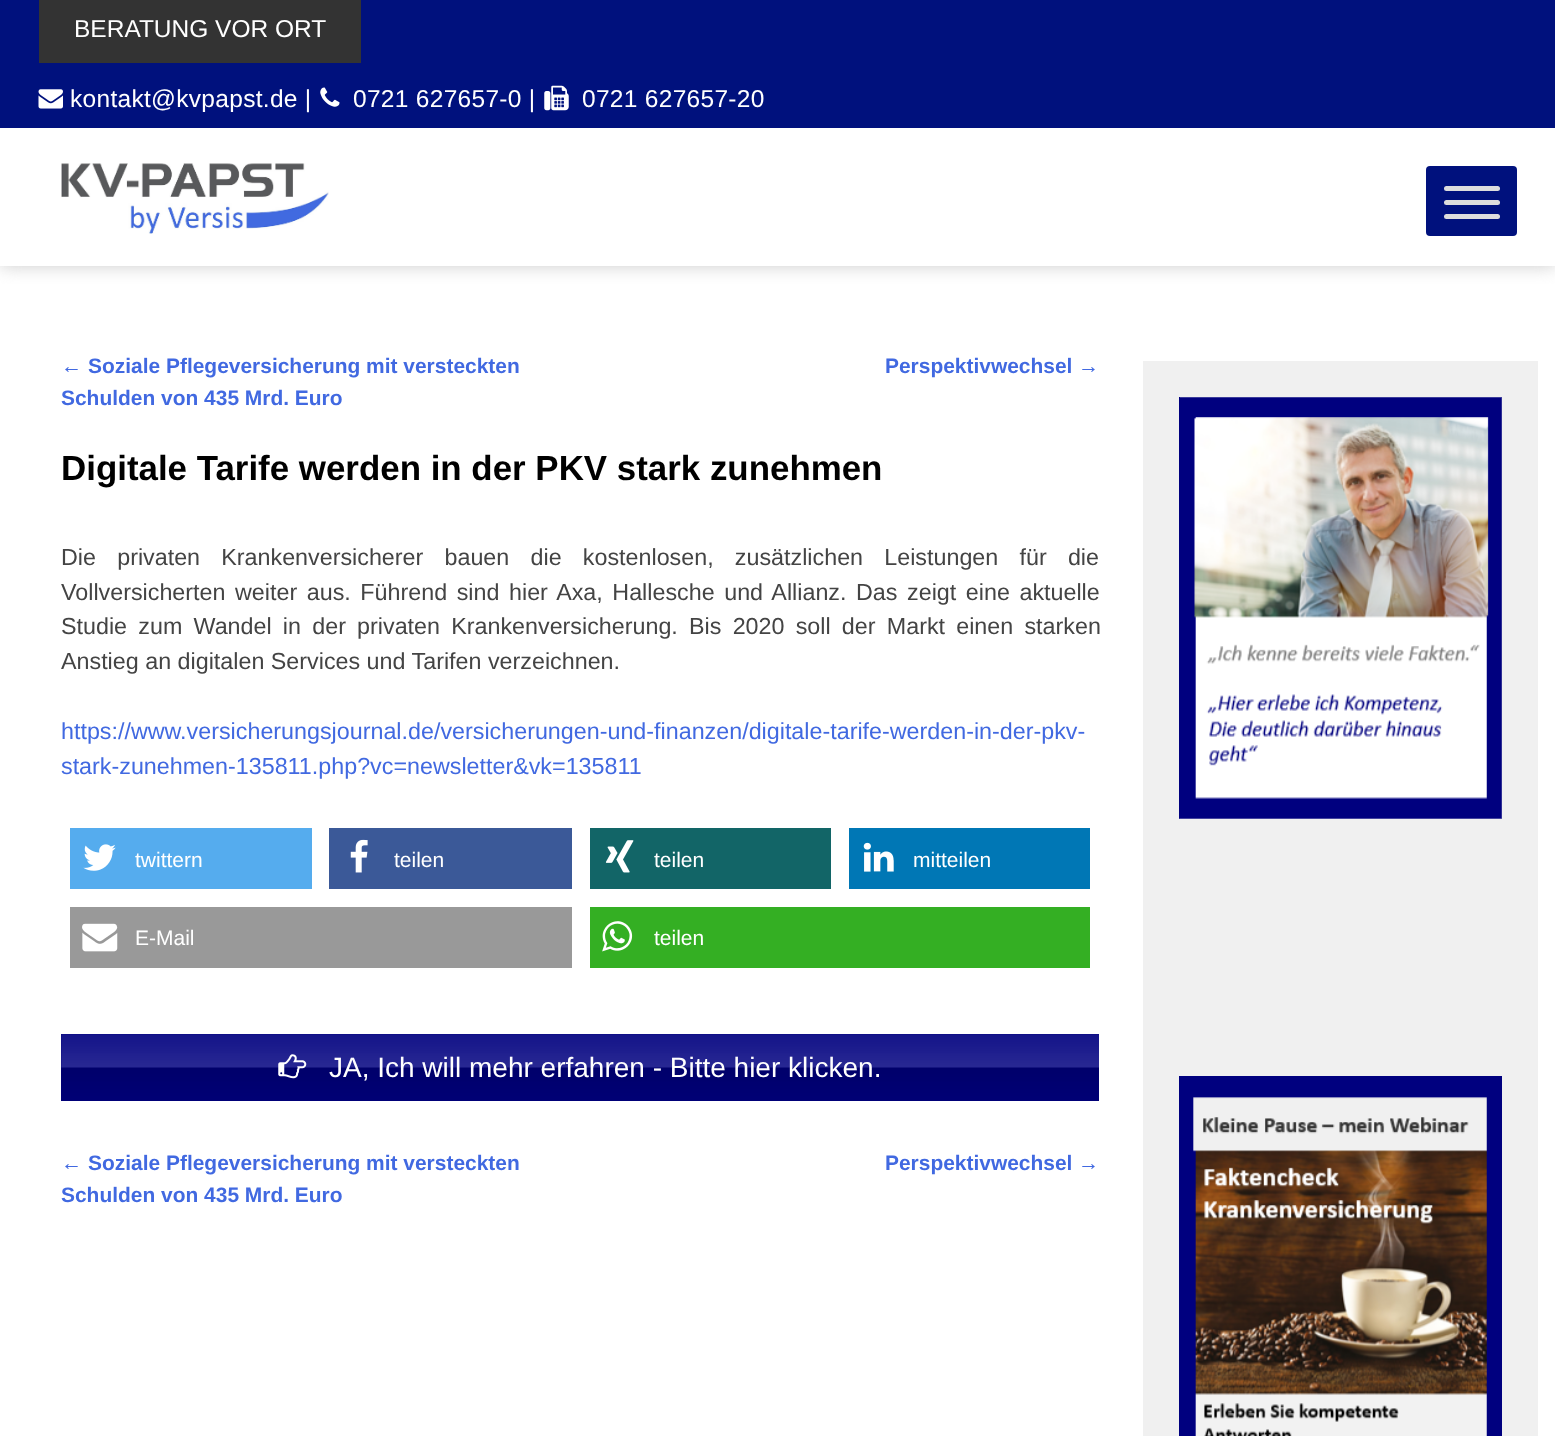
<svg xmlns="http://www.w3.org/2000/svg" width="1555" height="1436">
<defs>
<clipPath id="clip1"><rect x="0" y="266" width="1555" height="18"/></clipPath>
</defs>
<rect width="100%" height="100%" fill="#fff"/>
<g clip-path="url(#clip1)">
<rect width="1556" height="266" fill="#ccc" filter="blur(9px)"/>
</g>
<rect width="1555" height="128" fill="#00117d"/>
<rect x="39" width="322" height="63" fill="#333"/>
<text x="74" y="37" style="font-family:Liberation Sans;font-size:24.5px;fill:#fff">BERATUNG VOR ORT</text>
<image x="38" y="89" width="25" height="20" href="media/1.png"/>
<text x="70" y="107" style="font-family:Liberation Sans;font-size:24.5px;letter-spacing:0.3px;fill:#fff">kontakt@kvpapst.de |</text>
<image x="320" y="87" width="20" height="20" href="media/2.png"/>
<text x="353" y="107" style="font-family:Liberation Sans;font-size:24.5px;letter-spacing:0.3px;fill:#fff">0721 627657-0 |</text>
<image x="544" y="85" width="25" height="26" href="media/3.png"/>
<text x="582" y="107" style="font-family:Liberation Sans;font-size:24.5px;letter-spacing:0.3px;fill:#fff">0721 627657-20</text>
<image x="61" y="163" width="268" height="71" href="media/4.png"/>
<rect x="1426" y="166" width="91" height="70" rx="4" fill="#00117d"/>
<rect x="1444" y="186" width="56" height="5" rx="2.5" fill="#ddd"/>
<rect x="1444" y="200" width="56" height="5" rx="2.5" fill="#ddd"/>
<rect x="1444" y="214" width="56" height="5" rx="2.5" fill="#ddd"/>
<text x="61" y="373" style="font-family:Liberation Sans;font-size:20.95px;fill:#4169e1">←</text>
<text x="88" y="373" style="font-family:Liberation Sans;font-size:20.95px;font-weight:bold;fill:#4169e1">Soziale Pflegeversicherung mit versteckten</text>
<text x="61" y="405" style="font-family:Liberation Sans;font-size:20.95px;font-weight:bold;fill:#4169e1">Schulden von 435 Mrd. Euro</text>
<text x="885" y="373" style="font-family:Liberation Sans;font-size:20.95px;font-weight:bold;fill:#4169e1">Perspektivwechsel</text>
<text x="1078" y="373" style="font-family:Liberation Sans;font-size:20.95px;fill:#4169e1">→</text>
<text x="61" y="480" style="font-family:Liberation Sans;font-size:34.9px;font-weight:bold;fill:#000">Digitale Tarife werden in der PKV stark zunehmen</text>
<text x="61" y="565" word-spacing="14.75" style="font-family:Liberation Sans;font-size:23.3px;fill:#444">Die privaten Krankenversicherer bauen die kostenlosen, zusätzlichen Leistungen für die</text>
<text x="61" y="600" word-spacing="3.1" style="font-family:Liberation Sans;font-size:23.3px;fill:#444">Vollversicherten weiter aus. Führend sind hier Axa, Hallesche und Allianz. Das zeigt eine aktuelle</text>
<text x="61" y="634" word-spacing="4.75" style="font-family:Liberation Sans;font-size:23.3px;fill:#444">Studie zum Wandel in der privaten Krankenversicherung. Bis 2020 soll der Markt einen starken</text>
<text x="61" y="669" style="font-family:Liberation Sans;font-size:23.3px;fill:#444">Anstieg an digitalen Services und Tarifen verzeichnen.</text>
<text x="61" y="739" style="font-family:Liberation Sans;font-size:23.3px;fill:#4169e1">https://www.versicherungsjournal.de/versicherungen-und-finanzen/digitale-tarife-werden-in-der-pkv-</text>
<text x="61" y="774" style="font-family:Liberation Sans;font-size:23.3px;fill:#4169e1">stark-zunehmen-135811.php?vc=newsletter&amp;vk=135811</text>
<rect x="70" y="828" width="242" height="61" fill="#55acee"/>
<image x="83" y="844" width="33" height="27" href="media/5.png"/>
<text x="135" y="867" style="font-family:Liberation Sans;font-size:21px;fill:#fff">twittern</text>
<rect x="329" y="828" width="243" height="61" fill="#3b5998"/>
<image x="350" y="839" width="18" height="34" href="media/6.png"/>
<text x="394" y="867" style="font-family:Liberation Sans;font-size:21px;fill:#fff">teilen</text>
<rect x="590" y="828" width="241" height="61" fill="#126567"/>
<image x="605" y="840" width="29" height="33" href="media/7.png"/>
<text x="654" y="867" style="font-family:Liberation Sans;font-size:21px;fill:#fff">teilen</text>
<rect x="849" y="828" width="241" height="61" fill="#0077b5"/>
<image x="863" y="842" width="31" height="30" href="media/8.png"/>
<text x="913" y="867" style="font-family:Liberation Sans;font-size:21px;fill:#fff">mitteilen</text>
<rect x="70" y="907" width="502" height="61" fill="#999"/>
<image x="82" y="923" width="36" height="29" href="media/9.png"/>
<text x="135" y="945" style="font-family:Liberation Sans;font-size:21px;fill:#fff">E-Mail</text>
<rect x="590" y="907" width="500" height="61" fill="#34af23"/>
<image x="602" y="921" width="31" height="31" href="media/10.png"/>
<text x="654" y="945" style="font-family:Liberation Sans;font-size:21px;fill:#fff">teilen</text>
<rect x="61" y="1034" width="1038" height="67" fill="#00007f"/>
<image x="61" y="1034" width="1038" height="67" href="media/11.png"/>
<image x="278" y="1054" width="29" height="25" href="media/12.png"/>
<text x="329" y="1077" style="font-family:Liberation Sans;font-size:28px;fill:#fff">JA, Ich will mehr erfahren - Bitte hier klicken.</text>
<text x="61" y="1170" style="font-family:Liberation Sans;font-size:20.95px;fill:#4169e1">←</text>
<text x="88" y="1170" style="font-family:Liberation Sans;font-size:20.95px;font-weight:bold;fill:#4169e1">Soziale Pflegeversicherung mit versteckten</text>
<text x="61" y="1202" style="font-family:Liberation Sans;font-size:20.95px;font-weight:bold;fill:#4169e1">Schulden von 435 Mrd. Euro</text>
<text x="885" y="1170" style="font-family:Liberation Sans;font-size:20.95px;font-weight:bold;fill:#4169e1">Perspektivwechsel</text>
<text x="1078" y="1170" style="font-family:Liberation Sans;font-size:20.95px;fill:#4169e1">→</text>
<rect x="1143" y="361" width="395" height="1075" fill="#f0f0f0"/>
<image x="1179" y="397" width="1" height="422" href="media/13.png"/>
<image x="1179" y="397" width="323" height="422" href="media/14.png"/>
<image x="1501" y="397" width="1" height="422" href="media/15.png"/>
<rect x="1179" y="1076" width="1" height="360" fill="#00007f"/>
<image x="1180" y="1076" width="322" height="360" href="media/16.png"/>
</svg>
